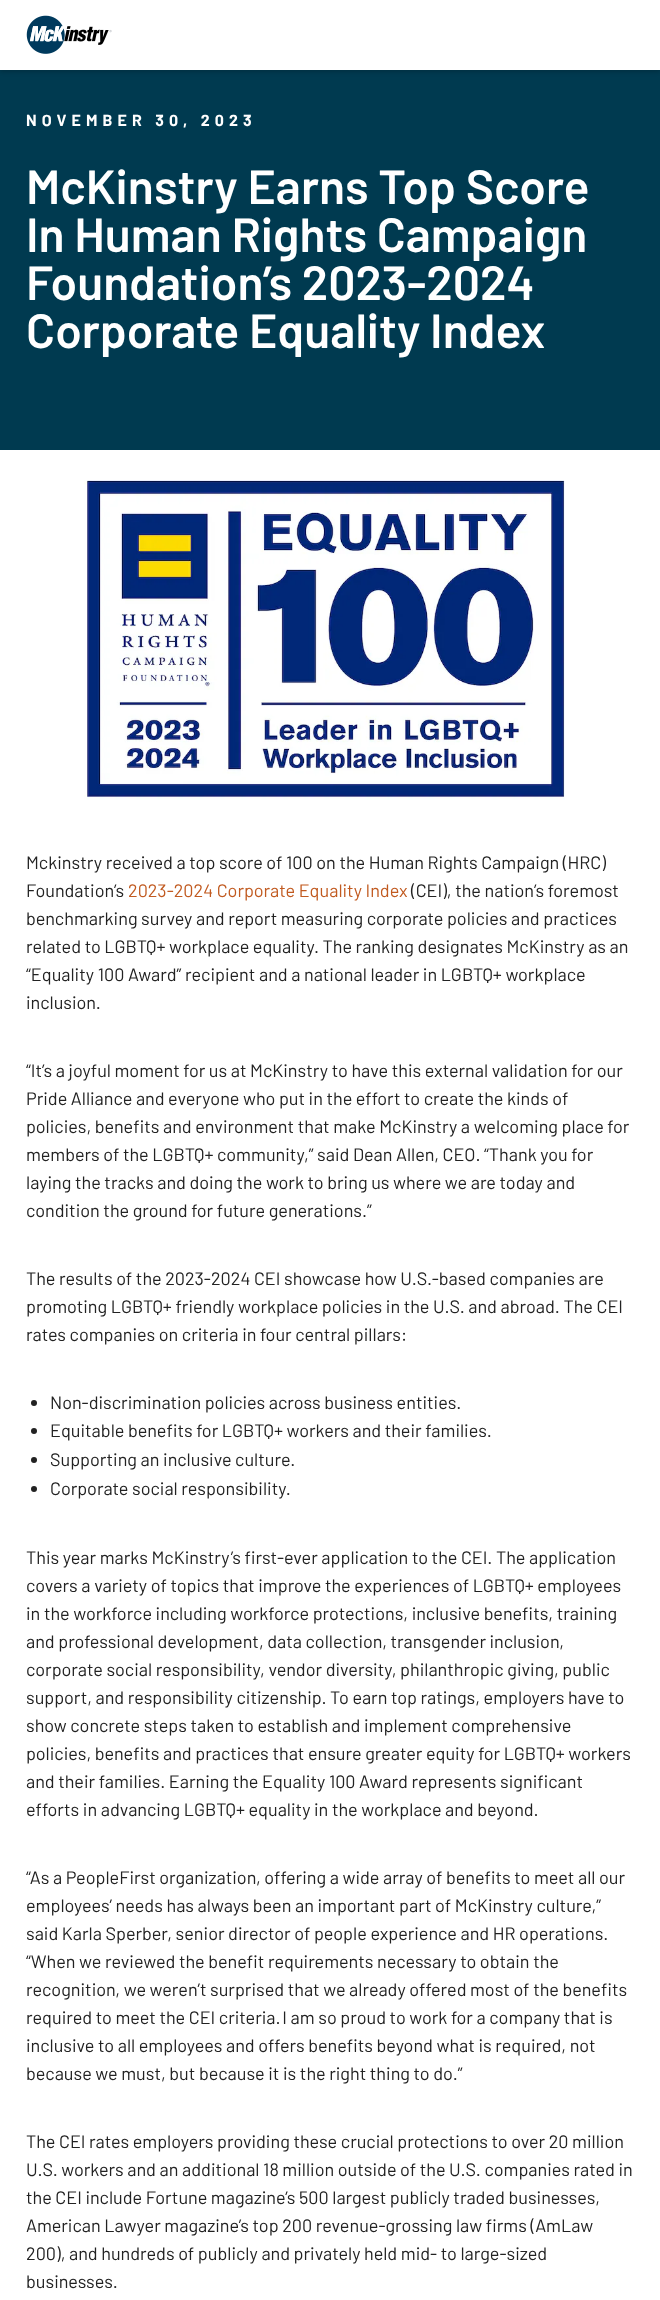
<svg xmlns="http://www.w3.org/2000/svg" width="660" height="2300">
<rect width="100%" height="100%" fill="#fff"/>
<rect y="70" width="660" height="380" fill="#003a50"/>
<rect y="2" width="660" height="70" fill="#0000002e" filter="blur(2px)"/>
<rect width="660" height="70" fill="#fff"/>
<image x="26" y="15" width="86" height="39" href="media/1.png"/>
<text x="26" y="126" style="font-family:Barlow;font-size:16px;font-weight:bold;letter-spacing:5.1px;fill:#fff">NOVEMBER 30, 2023</text>
<text x="26" y="204" style="font-family:Barlow;font-size:48px;font-weight:600;fill:#fff">McKinstry Earns Top Score</text>
<text x="26" y="252" style="font-family:Barlow;font-size:48px;font-weight:600;fill:#fff">In Human Rights Campaign</text>
<text x="26" y="300" style="font-family:Barlow;font-size:48px;font-weight:600;fill:#fff">Foundation’s 2023-2024</text>
<text x="26" y="348" style="font-family:Barlow;font-size:48px;font-weight:600;fill:#fff">Corporate Equality Index</text>
<image x="84" y="480" width="481" height="320" href="media/2.png"/>
<text x="26" y="869" style="font-family:Barlow;font-size:18px;fill:#222">Mckinstry received a top score of 100 on the Human Rights Campaign (HRC)</text>
<text x="26" y="897" style="font-family:Barlow;font-size:18px;fill:#222">Foundation’s</text>
<text x="128" y="897" style="font-family:Barlow;font-size:18px;fill:#c15a20">2023-2024 Corporate Equality Index</text>
<text x="411" y="897" style="font-family:Barlow;font-size:18px;fill:#222">(CEI), the nation’s foremost</text>
<text x="26" y="925" style="font-family:Barlow;font-size:18px;fill:#222">benchmarking survey and report measuring corporate policies and practices</text>
<text x="26" y="953" style="font-family:Barlow;font-size:18px;fill:#222">related to LGBTQ+ workplace equality. The ranking designates McKinstry as an</text>
<text x="26" y="981" style="font-family:Barlow;font-size:18px;fill:#222">“Equality 100 Award” recipient and a national leader in LGBTQ+ workplace</text>
<text x="26" y="1009" style="font-family:Barlow;font-size:18px;fill:#222">inclusion.</text>
<text x="26" y="1077" style="font-family:Barlow;font-size:18px;fill:#222">“It’s a joyful moment for us at McKinstry to have this external validation for our</text>
<text x="26" y="1105" style="font-family:Barlow;font-size:18px;fill:#222">Pride Alliance and everyone who put in the effort to create the kinds of</text>
<text x="26" y="1133" style="font-family:Barlow;font-size:18px;fill:#222">policies, benefits and environment that make McKinstry a welcoming place for</text>
<text x="26" y="1161" style="font-family:Barlow;font-size:18px;fill:#222">members of the LGBTQ+ community,” said Dean Allen, CEO. “Thank you for</text>
<text x="26" y="1189" style="font-family:Barlow;font-size:18px;fill:#222">laying the tracks and doing the work to bring us where we are today and</text>
<text x="26" y="1217" style="font-family:Barlow;font-size:18px;fill:#222">condition the ground for future generations.”</text>
<text x="26" y="1285" style="font-family:Barlow;font-size:18px;fill:#222">The results of the 2023-2024 CEI showcase how U.S.-based companies are</text>
<text x="26" y="1313" style="font-family:Barlow;font-size:18px;fill:#222">promoting LGBTQ+ friendly workplace policies in the U.S. and abroad. The CEI</text>
<text x="26" y="1341" style="font-family:Barlow;font-size:18px;fill:#222">rates companies on criteria in four central pillars:</text>
<circle cx="34" cy="1403" r="3" fill="#222"/>
<text x="50" y="1409" style="font-family:Barlow;font-size:18px;fill:#222">Non-discrimination policies across business entities.</text>
<circle cx="34" cy="1431" r="3" fill="#222"/>
<text x="50" y="1437" style="font-family:Barlow;font-size:18px;fill:#222">Equitable benefits for LGBTQ+ workers and their families.</text>
<circle cx="34" cy="1460" r="3" fill="#222"/>
<text x="50" y="1466" style="font-family:Barlow;font-size:18px;fill:#222">Supporting an inclusive culture.</text>
<circle cx="34" cy="1489" r="3" fill="#222"/>
<text x="50" y="1495" style="font-family:Barlow;font-size:18px;fill:#222">Corporate social responsibility.</text>
<text x="26" y="1564" style="font-family:Barlow;font-size:18px;fill:#222">This year marks McKinstry’s first-ever application to the CEI. The application</text>
<text x="26" y="1592" style="font-family:Barlow;font-size:18px;fill:#222">covers a variety of topics that improve the experiences of LGBTQ+ employees</text>
<text x="26" y="1620" style="font-family:Barlow;font-size:18px;fill:#222">in the workforce including workforce protections, inclusive benefits, training</text>
<text x="26" y="1648" style="font-family:Barlow;font-size:18px;fill:#222">and professional development, data collection, transgender inclusion,</text>
<text x="26" y="1676" style="font-family:Barlow;font-size:18px;fill:#222">corporate social responsibility, vendor diversity, philanthropic giving, public</text>
<text x="26" y="1704" style="font-family:Barlow;font-size:18px;fill:#222">support, and responsibility citizenship. To earn top ratings, employers have to</text>
<text x="26" y="1732" style="font-family:Barlow;font-size:18px;fill:#222">show concrete steps taken to establish and implement comprehensive</text>
<text x="26" y="1760" style="font-family:Barlow;font-size:18px;fill:#222">policies, benefits and practices that ensure greater equity for LGBTQ+ workers</text>
<text x="26" y="1788" style="font-family:Barlow;font-size:18px;fill:#222">and their families. Earning the Equality 100 Award represents significant</text>
<text x="26" y="1816" style="font-family:Barlow;font-size:18px;fill:#222">efforts in advancing LGBTQ+ equality in the workplace and beyond.</text>
<text x="26" y="1884" style="font-family:Barlow;font-size:18px;fill:#222">“As a PeopleFirst organization, offering a wide array of benefits to meet all our</text>
<text x="26" y="1912" style="font-family:Barlow;font-size:18px;fill:#222">employees’ needs has always been an important part of McKinstry culture,”</text>
<text x="26" y="1940" style="font-family:Barlow;font-size:18px;fill:#222">said Karla Sperber, senior director of people experience and HR operations.</text>
<text x="26" y="1968" style="font-family:Barlow;font-size:18px;fill:#222">“When we reviewed the benefit requirements necessary to obtain the</text>
<text x="26" y="1996" style="font-family:Barlow;font-size:18px;fill:#222">recognition, we weren’t surprised that we already offered most of the benefits</text>
<text x="26" y="2024" style="font-family:Barlow;font-size:18px;fill:#222">required to meet the CEI criteria. I am so proud to work for a company that is</text>
<text x="26" y="2052" style="font-family:Barlow;font-size:18px;fill:#222">inclusive to all employees and offers benefits beyond what is required, not</text>
<text x="26" y="2080" style="font-family:Barlow;font-size:18px;fill:#222">because we must, but because it is the right thing to do.”</text>
<text x="26" y="2148" style="font-family:Barlow;font-size:18px;fill:#222">The CEI rates employers providing these crucial protections to over 20 million</text>
<text x="26" y="2176" style="font-family:Barlow;font-size:18px;fill:#222">U.S. workers and an additional 18 million outside of the U.S. companies rated in</text>
<text x="26" y="2204" style="font-family:Barlow;font-size:18px;fill:#222">the CEI include Fortune magazine’s 500 largest publicly traded businesses,</text>
<text x="26" y="2232" style="font-family:Barlow;font-size:18px;fill:#222">American Lawyer magazine’s top 200 revenue-grossing law firms (AmLaw</text>
<text x="26" y="2260" style="font-family:Barlow;font-size:18px;fill:#222">200), and hundreds of publicly and privately held mid- to large-sized</text>
<text x="26" y="2288" style="font-family:Barlow;font-size:18px;fill:#222">businesses.</text>
</svg>
